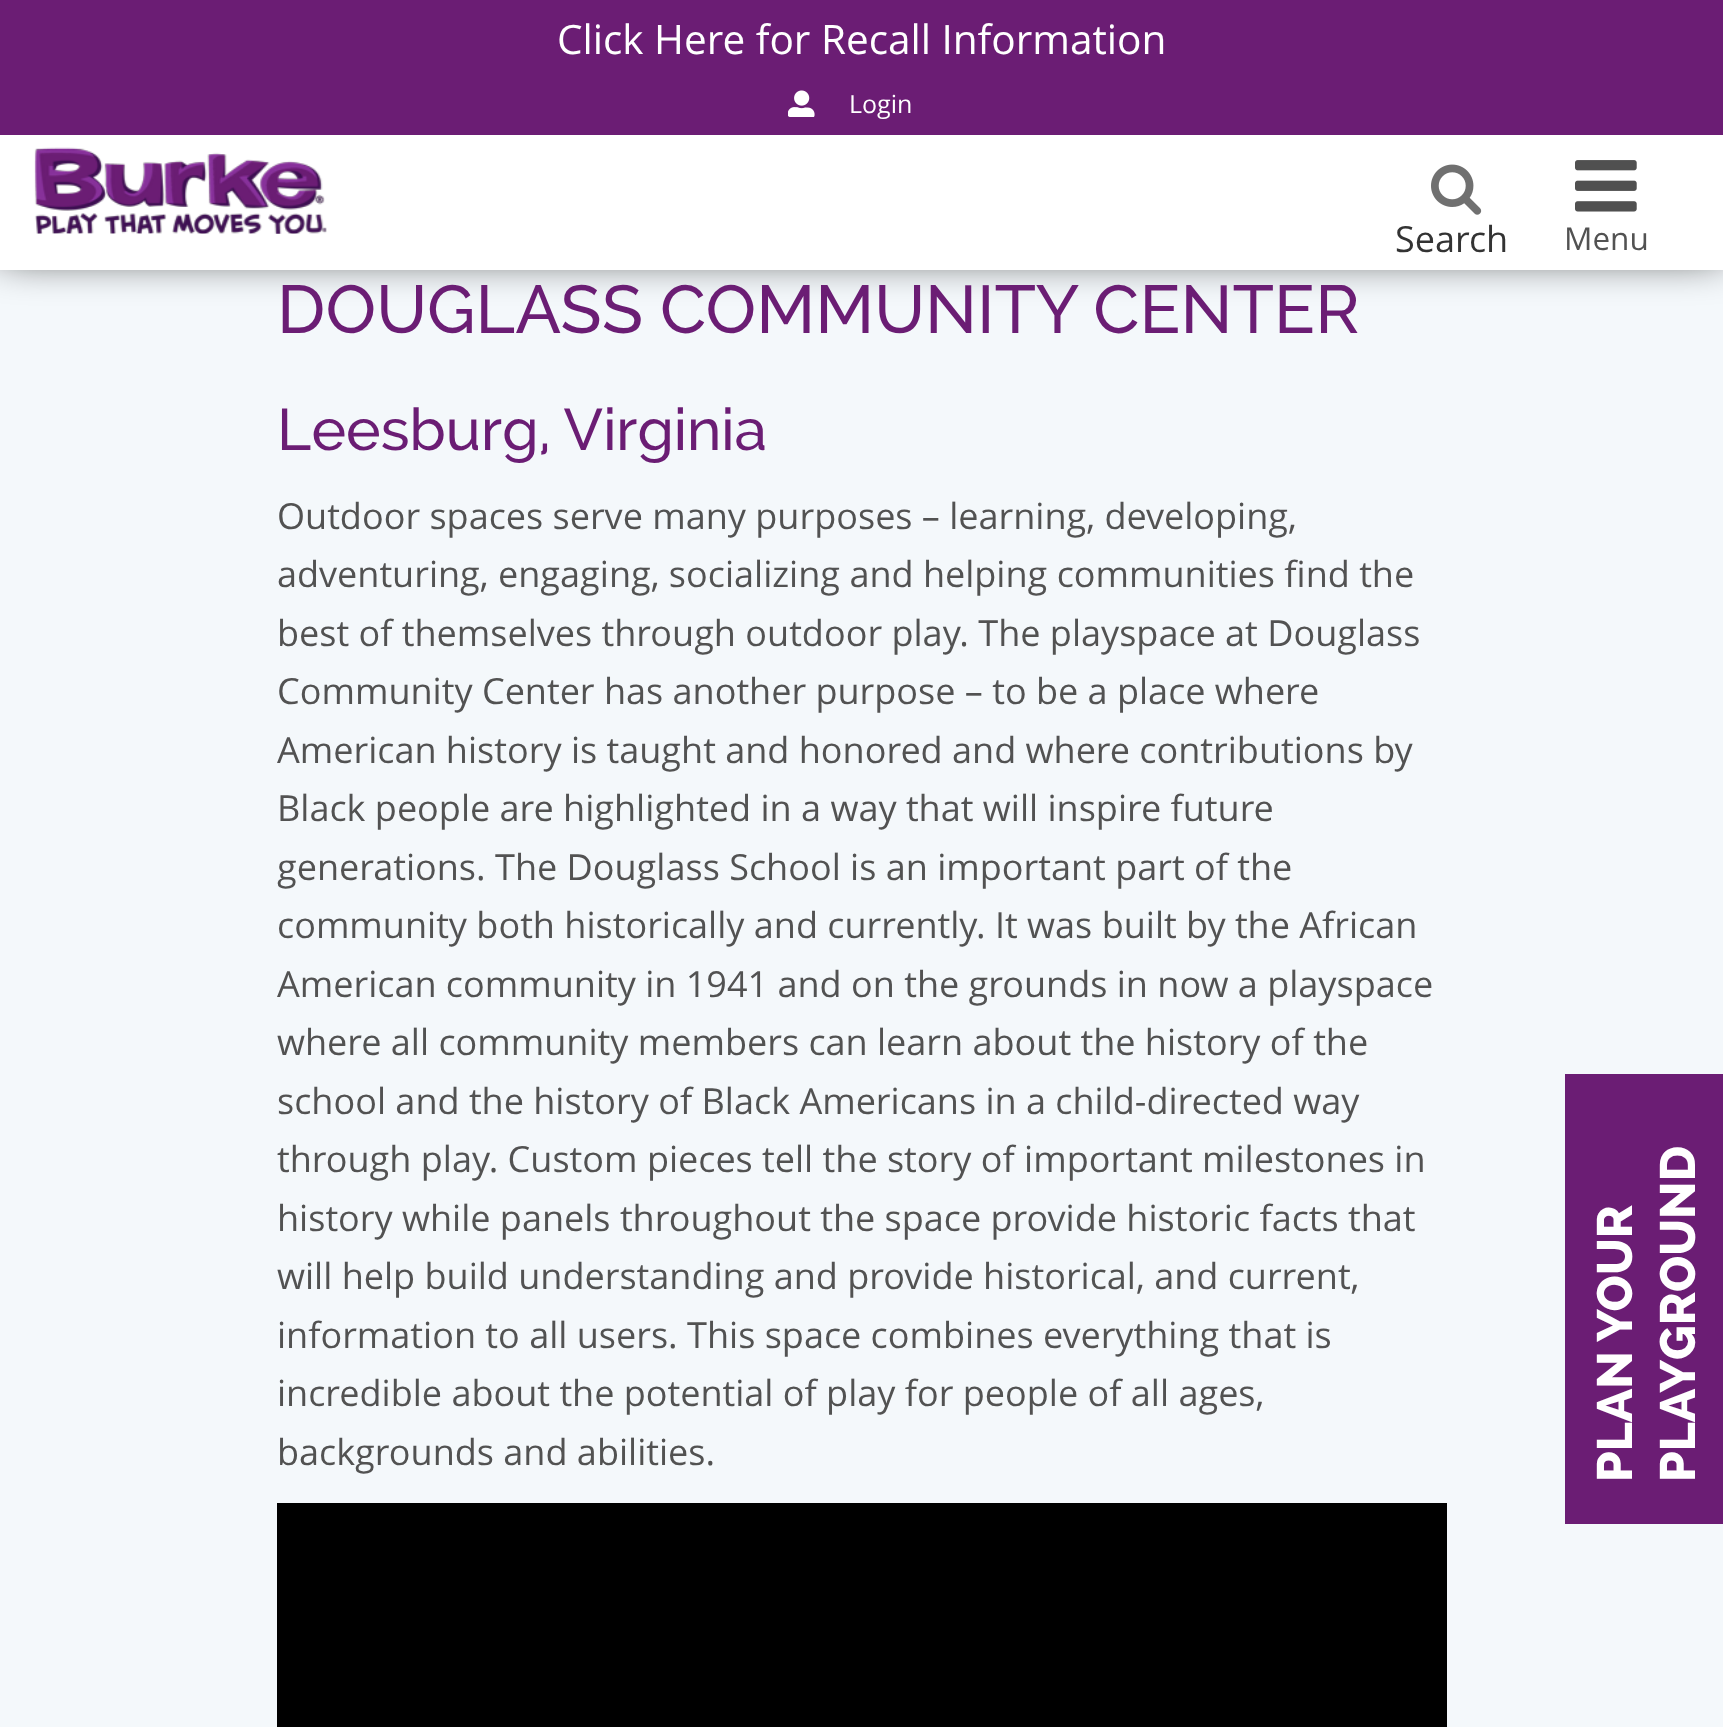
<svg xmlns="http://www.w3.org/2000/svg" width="1723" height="1727">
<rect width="100%" height="100%" fill="#f4f8fb"/>
<rect y="-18" width="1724" height="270" fill="#000" filter="blur(22.5px)"/>
<rect y="135" width="1723" height="135" fill="#fff"/>
<rect width="1723" height="135" fill="#6b1d74"/>
<text x="557" y="54" style="font-family:Open Sans;font-size:40.5px;fill:#fff">Click Here for Recall Information</text>
<image x="788" y="90" width="27" height="27" href="media/1.png"/>
<text x="849" y="113" style="font-family:Open Sans;font-size:25px;fill:#fff">Login</text>
<image x="34" y="147" width="293" height="87" href="media/2.png"/>
<image x="1431" y="164" width="51" height="51" href="media/3.png"/>
<text x="1395" y="252" style="font-family:Open Sans;font-size:36px;fill:#333">Search</text>
<image x="1575" y="160" width="62" height="52" href="media/4.png"/>
<text x="1564" y="250" style="font-family:Open Sans;font-size:31.5px;fill:#525252">Menu</text>
<rect x="1565" y="1074" width="158" height="450" fill="#6b1d74"/>
<text x="1632" y="1482" transform="rotate(-90 1632 1482)" style="font-family:Raleway;font-size:49.5px;font-weight:800;fill:#fff">PLAN YOUR</text>
<text x="1695" y="1482" transform="rotate(-90 1695 1482)" style="font-family:Raleway;font-size:49.5px;font-weight:800;fill:#fff">PLAYGROUND</text>
<text x="277" y="333" style="font-family:Raleway;font-size:67.5px;font-weight:500;fill:#6b1d74">DOUGLASS COMMUNITY CENTER</text>
<text x="277" y="450" style="font-family:Raleway;font-size:58.5px;font-weight:500;fill:#6b1d74">Leesburg, Virginia</text>
<text x="277" y="529" style="font-family:Open Sans;font-size:36px;fill:#525252">Outdoor spaces serve many purposes – learning, developing,</text>
<text x="277" y="587" style="font-family:Open Sans;font-size:36px;fill:#525252">adventuring, engaging, socializing and helping communities find the</text>
<text x="277" y="646" style="font-family:Open Sans;font-size:36px;fill:#525252">best of themselves through outdoor play. The playspace at Douglass</text>
<text x="277" y="704" style="font-family:Open Sans;font-size:36px;fill:#525252">Community Center has another purpose – to be a place where</text>
<text x="277" y="763" style="font-family:Open Sans;font-size:36px;fill:#525252">American history is taught and honored and where contributions by</text>
<text x="277" y="821" style="font-family:Open Sans;font-size:36px;fill:#525252">Black people are highlighted in a way that will inspire future</text>
<text x="277" y="880" style="font-family:Open Sans;font-size:36px;fill:#525252">generations. The Douglass School is an important part of the</text>
<text x="277" y="938" style="font-family:Open Sans;font-size:36px;fill:#525252">community both historically and currently. It was built by the African</text>
<text x="277" y="997" style="font-family:Open Sans;font-size:36px;fill:#525252">American community in 1941 and on the grounds in now a playspace</text>
<text x="277" y="1055" style="font-family:Open Sans;font-size:36px;fill:#525252">where all community members can learn about the history of the</text>
<text x="277" y="1114" style="font-family:Open Sans;font-size:36px;fill:#525252">school and the history of Black Americans in a child-directed way</text>
<text x="277" y="1172" style="font-family:Open Sans;font-size:36px;fill:#525252">through play. Custom pieces tell the story of important milestones in</text>
<text x="277" y="1231" style="font-family:Open Sans;font-size:36px;fill:#525252">history while panels throughout the space provide historic facts that</text>
<text x="277" y="1289" style="font-family:Open Sans;font-size:36px;fill:#525252">will help build understanding and provide historical, and current,</text>
<text x="277" y="1348" style="font-family:Open Sans;font-size:36px;fill:#525252">information to all users. This space combines everything that is</text>
<text x="277" y="1406" style="font-family:Open Sans;font-size:36px;fill:#525252">incredible about the potential of play for people of all ages,</text>
<text x="277" y="1465" style="font-family:Open Sans;font-size:36px;fill:#525252">backgrounds and abilities.</text>
<rect x="277" y="1503" width="1170" height="224" fill="#000"/>
</svg>
